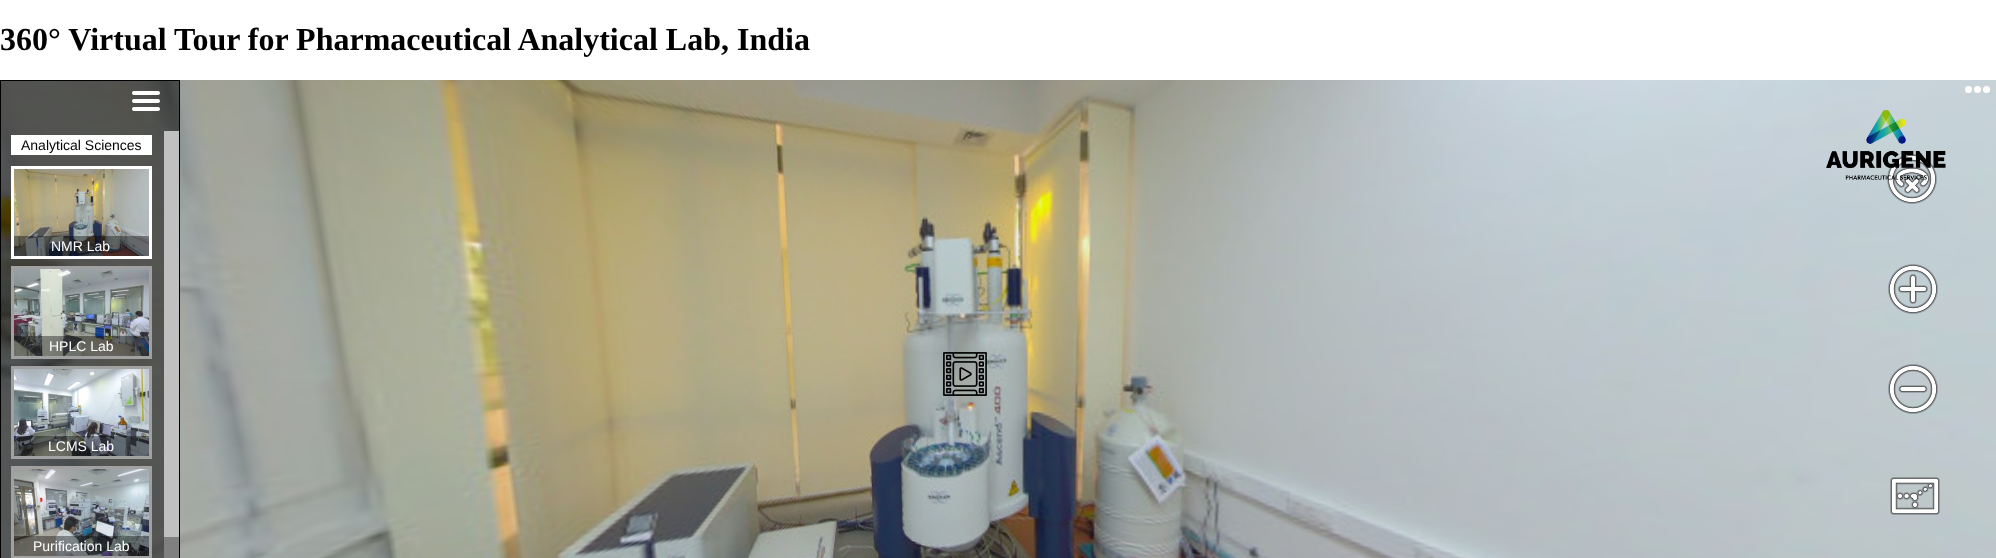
<svg xmlns="http://www.w3.org/2000/svg" width="1996" height="558">
<rect width="100%" height="100%" fill="#fff"/>
<text x="0" y="50" style="font-family:Liberation Serif;font-size:32px;font-weight:bold;fill:#000">360° Virtual Tour for Pharmaceutical Analytical Lab, India</text>
<image x="1" y="80" width="1995" height="478" href="media/1.png"/>
<circle cx="1968.5" cy="89.5" r="3.5" fill="#fff"/>
<circle cx="1986.5" cy="89.5" r="3.5" fill="#fff"/>
<circle cx="1977.5" cy="89.5" r="3.5" fill="#fff"/>
<rect x="0.5" y="80.5" width="179" height="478" fill="#00000080" stroke="#000"/>
<image x="132" y="91" width="28" height="20" href="media/2.png"/>
<rect x="11" y="135" width="141" height="20" fill="#fff"/>
<text x="21" y="150" style="font-family:Liberation Sans;font-size:14px;fill:#000">Analytical Sciences</text>
<image x="14" y="169" width="135" height="87" href="media/3.png"/>
<rect x="14" y="236" width="135" height="20" fill="#00000063"/>
<rect x="12.5" y="167.5" width="138" height="90" fill="none" stroke="#fff" stroke-width="3"/>
<text x="51" y="251" style="font-family:Liberation Sans;font-size:14px;fill:#fff">NMR Lab</text>
<image x="14" y="269" width="135" height="87" href="media/4.png"/>
<rect x="14" y="336" width="135" height="20" fill="#00000063"/>
<rect x="12.5" y="267.5" width="138" height="90" fill="none" stroke="#a1a1a1" stroke-width="3"/>
<text x="49" y="351" style="font-family:Liberation Sans;font-size:14px;fill:#fff">HPLC Lab</text>
<image x="14" y="369" width="135" height="87" href="media/5.png"/>
<rect x="14" y="436" width="135" height="20" fill="#00000063"/>
<rect x="12.5" y="367.5" width="138" height="90" fill="none" stroke="#a1a1a1" stroke-width="3"/>
<text x="48" y="451" style="font-family:Liberation Sans;font-size:14px;fill:#fff">LCMS Lab</text>
<image x="14" y="469" width="135" height="87" href="media/6.png"/>
<rect x="14" y="536" width="135" height="20" fill="#00000063"/>
<rect x="12.5" y="467.5" width="138" height="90" fill="none" stroke="#a1a1a1" stroke-width="3"/>
<text x="33" y="551" style="font-family:Liberation Sans;font-size:14px;fill:#fff">Purification Lab</text>
<rect x="164" y="537" width="15" height="21" fill="#808080"/>
<rect x="164" y="131" width="15" height="406" fill="#c0c0c0"/>
<image x="1887" y="154" width="50" height="50" href="media/8.png"/>
<image x="1826" y="110" width="120" height="70" href="media/7.png"/>
<image x="943" y="352" width="44" height="44" href="media/9.png"/>
<image x="1888" y="264" width="50" height="50" href="media/10.png"/>
<image x="1888" y="364" width="50" height="50" href="media/11.png"/>
<image x="1890" y="477" width="50" height="38" href="media/12.png"/>
</svg>
